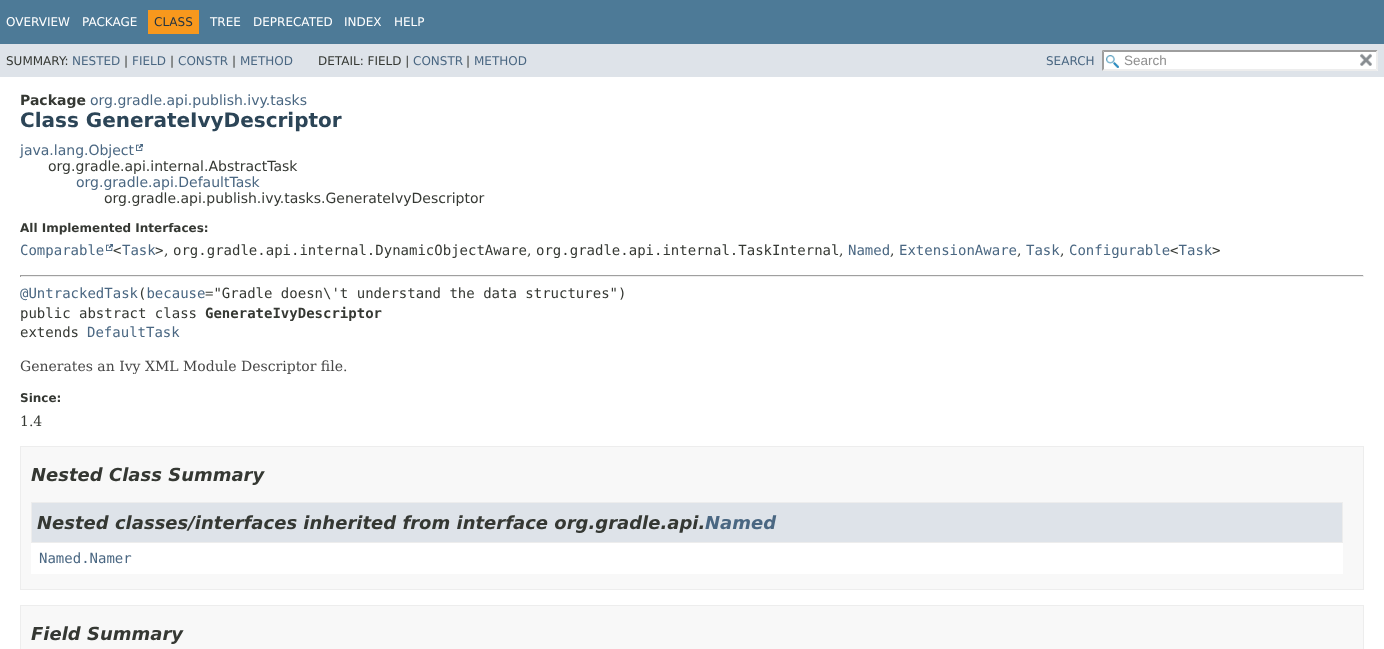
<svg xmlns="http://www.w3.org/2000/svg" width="1384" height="649">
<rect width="100%" height="100%" fill="#fff"/>
<rect width="1384" height="44" fill="#4d7a97"/>
<text x="6" y="26" style="font-family:DejaVu Sans;font-size:12px;fill:#fff">OVERVIEW</text>
<text x="82" y="26" style="font-family:DejaVu Sans;font-size:12px;fill:#fff">PACKAGE</text>
<rect x="148" y="10" width="51" height="24" fill="#f8981d"/>
<text x="154" y="26" style="font-family:DejaVu Sans;font-size:12px;fill:#253441">CLASS</text>
<text x="210" y="26" style="font-family:DejaVu Sans;font-size:12px;fill:#fff">TREE</text>
<text x="253" y="26" style="font-family:DejaVu Sans;font-size:12px;fill:#fff">DEPRECATED</text>
<text x="344" y="26" style="font-family:DejaVu Sans;font-size:12px;fill:#fff">INDEX</text>
<text x="394" y="26" style="font-family:DejaVu Sans;font-size:12px;fill:#fff">HELP</text>
<rect y="44" width="1384" height="33" fill="#dee3e9"/>
<text x="6" y="65" style="font-family:DejaVu Sans;font-size:12px;fill:#353833">SUMMARY:</text>
<text x="72" y="65" style="font-family:DejaVu Sans;font-size:12px;fill:#4a6782">NESTED</text>
<text x="124" y="65" style="font-family:DejaVu Sans;font-size:12px;fill:#353833">|</text>
<text x="132" y="65" style="font-family:DejaVu Sans;font-size:12px;fill:#4a6782">FIELD</text>
<text x="170" y="65" style="font-family:DejaVu Sans;font-size:12px;fill:#353833">|</text>
<text x="178" y="65" style="font-family:DejaVu Sans;font-size:12px;fill:#4a6782">CONSTR</text>
<text x="232" y="65" style="font-family:DejaVu Sans;font-size:12px;fill:#353833">|</text>
<text x="240" y="65" style="font-family:DejaVu Sans;font-size:12px;fill:#4a6782">METHOD</text>
<text x="318" y="65" style="font-family:DejaVu Sans;font-size:12px;fill:#353833">DETAIL: FIELD |</text>
<text x="413" y="65" style="font-family:DejaVu Sans;font-size:12px;fill:#4a6782">CONSTR</text>
<text x="466" y="65" style="font-family:DejaVu Sans;font-size:12px;fill:#353833">|</text>
<text x="474" y="65" style="font-family:DejaVu Sans;font-size:12px;fill:#4a6782">METHOD</text>
<text x="1046" y="65" style="font-family:DejaVu Sans;font-size:12px;fill:#4a6782">SEARCH</text>
<rect x="1102" y="50" width="276" height="21" fill="#fff"/>
<image x="1106" y="55" width="13" height="13" href="media/1.png"/>
<path d="M1102 50h276l-2 2h-272z" fill="#9e9e9e"/>
<path d="M1378 50v21l-2-2v-17z" fill="#ededed"/>
<path d="M1378 71h-276l2-2h272z" fill="#ededed"/>
<path d="M1102 71v-21l2 2v17z" fill="#9e9e9e"/>
<text x="1124" y="65" style="font-family:Liberation Sans;font-size:13.5px;fill:#909090">Search</text>
<image x="1360" y="53" width="12" height="13" href="media/2.png"/>
<text x="20" y="105" style="font-family:DejaVu Sans;font-size:14px;font-weight:bold;fill:#353833">Package</text>
<text x="90" y="105" style="font-family:DejaVu Sans;font-size:14px;fill:#4a6782">org.gradle.api.publish.ivy.tasks</text>
<text x="20" y="127" style="font-family:DejaVu Sans;font-size:20px;font-weight:bold;fill:#2c4557">Class GenerateIvyDescriptor</text>
<text x="20" y="155" style="font-family:DejaVu Sans;font-size:14px;fill:#4a6782">java.lang.Object</text>
<image x="136" y="144" width="7" height="7" href="media/3.png"/>
<text x="48" y="171" style="font-family:DejaVu Sans;font-size:14px;fill:#353833">org.gradle.api.internal.AbstractTask</text>
<text x="76" y="187" style="font-family:DejaVu Sans;font-size:14px;fill:#4a6782">org.gradle.api.DefaultTask</text>
<text x="104" y="203" style="font-family:DejaVu Sans;font-size:14px;fill:#353833">org.gradle.api.publish.ivy.tasks.GenerateIvyDescriptor</text>
<text x="20" y="232" style="font-family:DejaVu Sans;font-size:12px;font-weight:bold;fill:#353833">All Implemented Interfaces:</text>
<text x="20" y="255" style="font-family:DejaVu Sans Mono;font-size:14px;fill:#4a6782">Comparable</text>
<image x="106" y="244" width="7" height="7" href="media/3.png"/>
<text x="113" y="255" style="font-family:DejaVu Sans Mono;font-size:14px;fill:#353833">&lt;</text>
<text x="122" y="255" style="font-family:DejaVu Sans Mono;font-size:14px;fill:#4a6782">Task</text>
<text x="155" y="255" style="font-family:DejaVu Sans Mono;font-size:14px;fill:#353833">&gt;</text>
<text x="173" y="255" style="font-family:DejaVu Sans Mono;font-size:14px;fill:#353833">org.gradle.api.internal.DynamicObjectAware</text>
<text x="536" y="255" style="font-family:DejaVu Sans Mono;font-size:14px;fill:#353833">org.gradle.api.internal.TaskInternal</text>
<text x="848" y="255" style="font-family:DejaVu Sans Mono;font-size:14px;fill:#4a6782">Named</text>
<text x="899" y="255" style="font-family:DejaVu Sans Mono;font-size:14px;fill:#4a6782">ExtensionAware</text>
<text x="1026" y="255" style="font-family:DejaVu Sans Mono;font-size:14px;fill:#4a6782">Task</text>
<text x="1069" y="255" style="font-family:DejaVu Sans Mono;font-size:14px;fill:#4a6782">Configurable Task</text>
<text x="1170" y="255" style="font-family:DejaVu Sans Mono;font-size:14px;fill:#353833">&lt;</text>
<text x="1212" y="255" style="font-family:DejaVu Sans Mono;font-size:14px;fill:#353833">&gt;</text>
<text x="164" y="255" style="font-family:DejaVu Serif;font-size:14px;fill:#353833">,</text>
<text x="527" y="255" style="font-family:DejaVu Serif;font-size:14px;fill:#353833">,</text>
<text x="839" y="255" style="font-family:DejaVu Serif;font-size:14px;fill:#353833">,</text>
<text x="890" y="255" style="font-family:DejaVu Serif;font-size:14px;fill:#353833">,</text>
<text x="1017" y="255" style="font-family:DejaVu Serif;font-size:14px;fill:#353833">,</text>
<text x="1060" y="255" style="font-family:DejaVu Serif;font-size:14px;fill:#353833">,</text>
<rect x="20" y="275" width="1344" height="1" fill="#9f9f9f"/>
<rect x="1363" y="275" width="1" height="2" fill="#eee"/>
<rect x="20" y="276" width="1344" height="1" fill="#eee"/>
<rect x="20" y="275" width="1" height="2" fill="#9f9f9f"/>
<text x="20" y="298" style="font-family:DejaVu Sans Mono;font-size:14px;fill:#4a6782">@UntrackedTask because</text>
<text x="138" y="298" style="font-family:DejaVu Sans Mono;font-size:14px;fill:#353833">(</text>
<text x="205" y="298" style="font-family:DejaVu Sans Mono;font-size:14px;fill:#353833">="Gradle doesn\'t understand the data structures")</text>
<text x="20" y="318" style="font-family:DejaVu Sans Mono;font-size:14px;fill:#353833">public abstract class</text>
<text x="205" y="318" style="font-family:DejaVu Sans Mono;font-size:14px;font-weight:bold;fill:#353833">GenerateIvyDescriptor</text>
<text x="20" y="337" style="font-family:DejaVu Sans Mono;font-size:14px;fill:#353833">extends</text>
<text x="87" y="337" style="font-family:DejaVu Sans Mono;font-size:14px;fill:#4a6782">DefaultTask</text>
<text x="20" y="371" style="font-family:DejaVu Serif;font-size:14px;fill:#474747">Generates an Ivy XML Module Descriptor file.</text>
<text x="20" y="402" style="font-family:DejaVu Sans;font-size:12px;font-weight:bold;fill:#353833">Since:</text>
<text x="20" y="426" style="font-family:DejaVu Serif;font-size:14px;fill:#353833">1.4</text>
<rect x="20.5" y="446.5" width="1343" height="143" fill="#f8f8f8" stroke="#ededed"/>
<text x="31" y="481" style="font-family:DejaVu Sans;font-size:18px;font-weight:bold;font-style:italic;fill:#353833">Nested Class Summary</text>
<rect x="31" y="543" width="1312" height="31" fill="#fff"/>
<rect x="31.5" y="502.5" width="1311" height="40" fill="#dee3e9" stroke="#ededed"/>
<text x="37" y="529" style="font-family:DejaVu Sans;font-size:18px;font-weight:bold;font-style:italic;fill:#353833">Nested classes/interfaces inherited from interface org.gradle.api.</text>
<text x="705" y="529" style="font-family:DejaVu Sans;font-size:18px;font-weight:bold;font-style:italic;fill:#4a6782">Named</text>
<text x="39" y="563" style="font-family:DejaVu Sans Mono;font-size:14px;fill:#4a6782">Named.Namer</text>
<rect x="20.5" y="605.5" width="1343" height="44" fill="#f8f8f8" stroke="#ededed"/>
<text x="31" y="640" style="font-family:DejaVu Sans;font-size:18px;font-weight:bold;font-style:italic;fill:#353833">Field Summary</text>
</svg>
